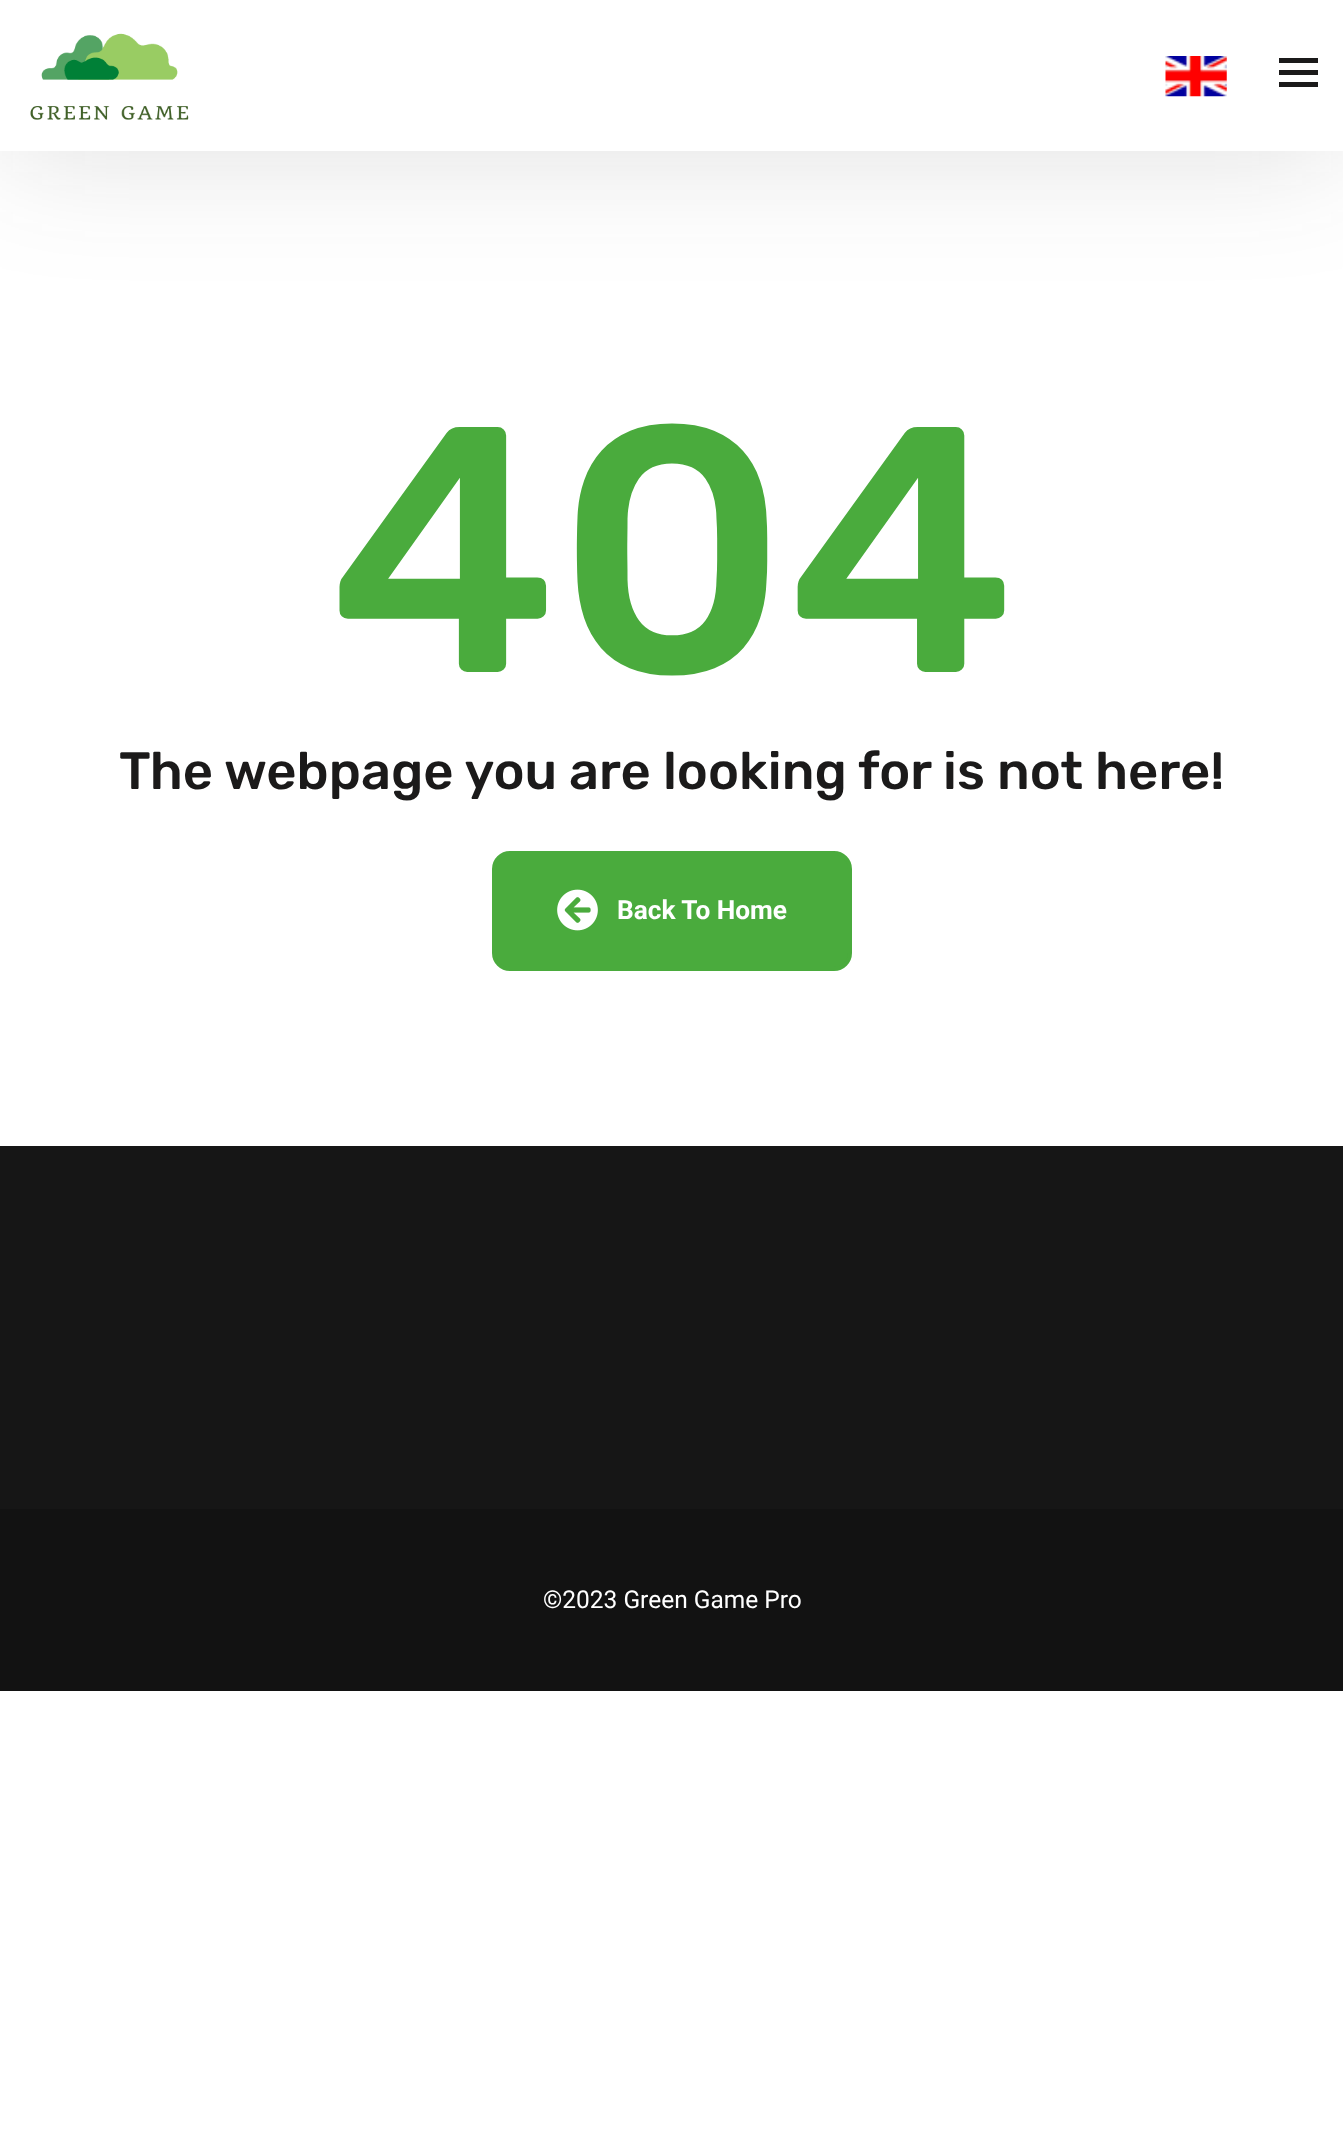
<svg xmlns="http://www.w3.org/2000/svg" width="1343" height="2146">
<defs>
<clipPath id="clip1"><path d="M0 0h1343v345h-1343zm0 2h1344v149h-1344z" clip-rule="evenodd"/></clipPath>
</defs>
<rect width="100%" height="100%" fill="#fff"/>
<g clip-path="url(#clip1)">
<rect y="4" width="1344" height="148" fill="#28282826" filter="blur(64px)"/>
</g>
<image x="30" y="33" width="159" height="87" href="media/1.png"/>
<image x="1165" y="56" width="62" height="41" href="media/2.png"/>
<rect x="1279" y="58" width="39" height="5" fill="#1b1a1a"/>
<rect x="1279" y="70" width="39" height="5" fill="#1b1a1a"/>
<rect x="1279" y="82" width="39" height="5" fill="#1b1a1a"/>
<rect width="1343" height="2" fill="#fff"/>
<text x="329" y="672" style="font-family:Rubik;font-size:350px;font-weight:500;fill:#4aab3d">404</text>
<text x="119" y="789" style="font-family:Rubik;font-size:52.5px;font-weight:500;fill:#1b1a1a">The webpage you are looking for is not here!</text>
<rect x="494" y="853" width="356" height="116" rx="16" fill="#4aab3d" stroke="#4aab3d" stroke-width="4"/>
<image x="557" y="889" width="41" height="42" href="media/3.png"/>
<text x="617" y="919" style="font-family:Roboto;font-size:26.25px;font-weight:bold;fill:#fff">Back To Home</text>
<rect y="1146" width="1343" height="363" fill="#161616"/>
<rect y="1509" width="1343" height="182" fill="#121212"/>
<text x="543" y="1608" style="font-family:Roboto;font-size:24.5px;fill:#fff">©2023 Green Game Pro</text>
</svg>
